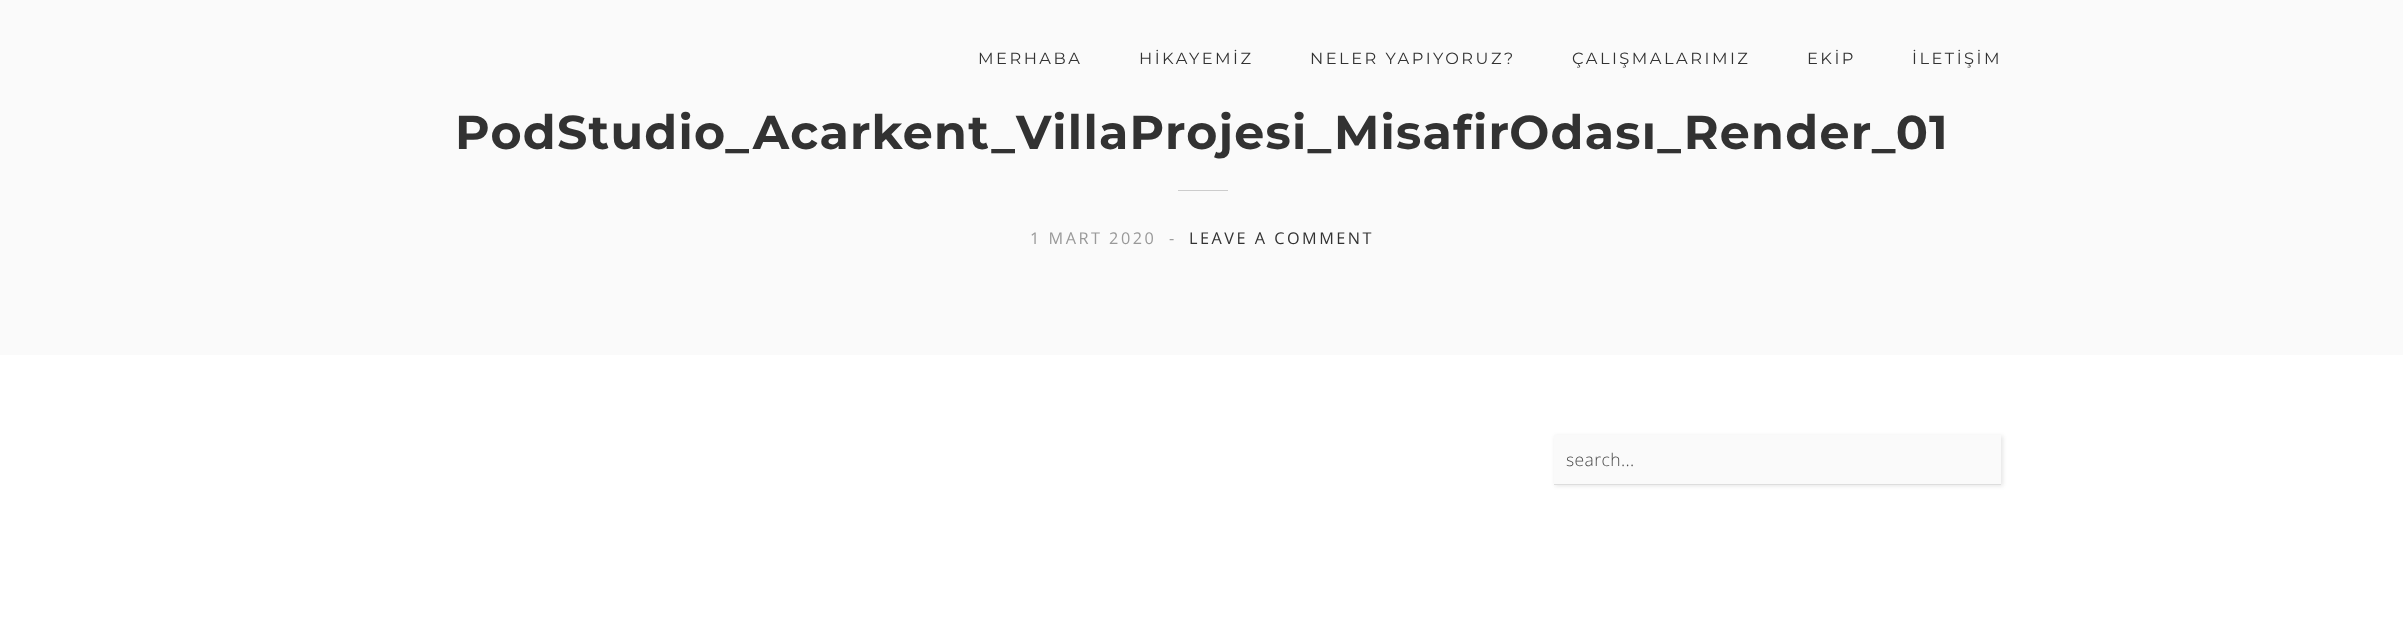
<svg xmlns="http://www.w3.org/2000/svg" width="2403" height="617">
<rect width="100%" height="100%" fill="#fff"/>
<rect width="2403" height="355" fill="#fafafa"/>
<text x="978" y="64" style="font-family:Montserrat;font-size:16.25px;letter-spacing:2.5px;fill:#323232">MERHABA</text>
<text x="1139" y="64" style="font-family:Montserrat;font-size:16.25px;letter-spacing:2.5px;fill:#323232">HİKAYEMİZ</text>
<text x="1310" y="64" style="font-family:Montserrat;font-size:16.25px;letter-spacing:2.5px;fill:#323232">NELER YAPIYORUZ?</text>
<text x="1572" y="64" style="font-family:Montserrat;font-size:16.25px;letter-spacing:2.5px;fill:#323232">ÇALIŞMALARIMIZ</text>
<text x="1807" y="64" style="font-family:Montserrat;font-size:16.25px;letter-spacing:2.5px;fill:#323232">EKİP</text>
<text x="1912" y="64" style="font-family:Montserrat;font-size:16.25px;letter-spacing:2.5px;fill:#323232">İLETİŞİM</text>
<text x="455" y="149" style="font-family:Montserrat;font-size:47.5px;font-weight:bold;letter-spacing:1.25px;fill:#323232">PodStudio_Acarkent_VillaProjesi_MisafirOdası_Render_01</text>
<rect x="1178" y="190" width="50" height="1" fill="#ccc"/>
<text x="1030" y="244" style="font-family:Open Sans;font-size:16.25px;letter-spacing:2.5px;fill:#999">1 MART 2020</text>
<text x="1169" y="244" style="font-family:Open Sans;font-size:16.25px;letter-spacing:2.5px;fill:#999">-</text>
<text x="1189" y="244" style="font-family:Open Sans;font-size:16.25px;letter-spacing:2.5px;fill:#323232">LEAVE A COMMENT</text>
<rect x="1555" y="436" width="448" height="50" fill="#0000001a" filter="blur(2px)"/>
<rect x="1554" y="435" width="447" height="49" fill="#fafafa"/>
<rect x="1554" y="484" width="447" height="1" fill="#ddd"/>
<text x="1566" y="466" style="font-family:Open Sans;font-size:17.5px;font-weight:300;letter-spacing:0.4px;fill:#4c4c4c">search...</text>
</svg>
